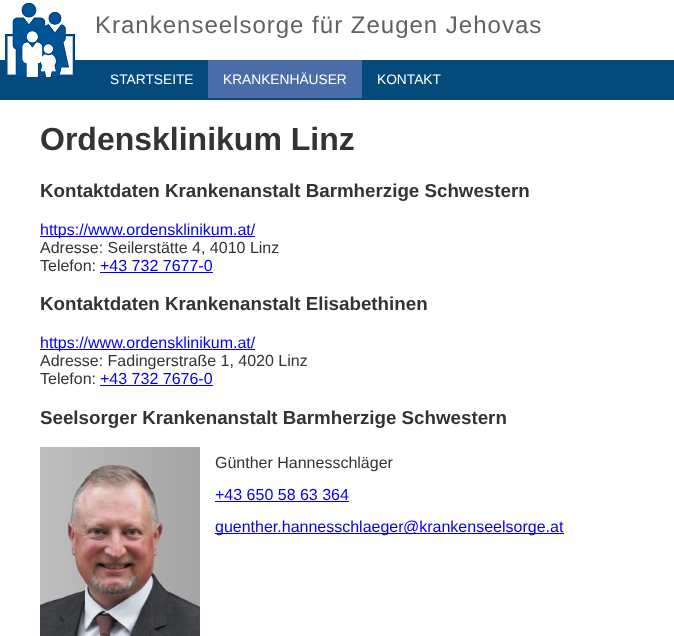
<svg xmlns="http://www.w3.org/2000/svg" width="674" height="636">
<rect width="100%" height="100%" fill="#fff"/>
<rect y="60" width="674" height="40" fill="#044b7b"/>
<image x="5" y="2" width="70" height="75" href="media/1.png"/>
<text x="95" y="33" style="font-family:Liberation Sans;font-size:24px;letter-spacing:1px;fill:#65605e">Krankenseelsorge für Zeugen Jehovas</text>
<text x="110" y="84" style="font-family:Liberation Sans;font-size:13.75px;fill:#fff">STARTSEITE</text>
<rect x="208" y="60" width="154" height="38" fill="#4a6da7"/>
<text x="223" y="84" style="font-family:Liberation Sans;font-size:13.75px;fill:#fff">KRANKENHÄUSER</text>
<text x="377" y="84" style="font-family:Liberation Sans;font-size:13.75px;fill:#fff">KONTAKT</text>
<text x="40" y="150" style="font-family:Liberation Sans;font-size:32px;font-weight:bold;fill:#333">Ordensklinikum Linz</text>
<text x="40" y="197" style="font-family:Liberation Sans;font-size:18.75px;font-weight:bold;fill:#333">Kontaktdaten Krankenanstalt Barmherzige Schwestern</text>
<rect x="40" y="236" width="215" height="1" fill="#00e"/>
<text x="40" y="235" style="font-family:Liberation Sans;font-size:16px;fill:#00e">https://www.ordensklinikum.at/</text>
<text x="40" y="253" style="font-family:Liberation Sans;font-size:16px;fill:#333">Adresse: Seilerstätte 4, 4010 Linz</text>
<text x="40" y="271" style="font-family:Liberation Sans;font-size:16px;fill:#333">Telefon:</text>
<text x="100" y="271" style="font-family:Liberation Sans;font-size:16px;fill:#00e">+43 732 7677-0</text>
<rect x="100" y="272" width="113" height="1" fill="#00e"/>
<text x="40" y="310" style="font-family:Liberation Sans;font-size:18.75px;font-weight:bold;fill:#333">Kontaktdaten Krankenanstalt Elisabethinen</text>
<rect x="40" y="349" width="215" height="1" fill="#00e"/>
<text x="40" y="348" style="font-family:Liberation Sans;font-size:16px;fill:#00e">https://www.ordensklinikum.at/</text>
<text x="40" y="366" style="font-family:Liberation Sans;font-size:16px;fill:#333">Adresse: Fadingerstraße 1, 4020 Linz</text>
<text x="40" y="384" style="font-family:Liberation Sans;font-size:16px;fill:#333">Telefon:</text>
<text x="100" y="384" style="font-family:Liberation Sans;font-size:16px;fill:#00e">+43 732 7676-0</text>
<rect x="100" y="385" width="113" height="1" fill="#00e"/>
<text x="40" y="424" style="font-family:Liberation Sans;font-size:18.75px;font-weight:bold;fill:#333">Seelsorger Krankenanstalt Barmherzige Schwestern</text>
<image x="40" y="447" width="160" height="189" href="media/2.png"/>
<text x="215" y="468" style="font-family:Liberation Sans;font-size:16px;fill:#333">Günther Hannesschläger</text>
<text x="215" y="500" style="font-family:Liberation Sans;font-size:16px;fill:#00e">+43 650 58 63 364</text>
<rect x="215" y="501" width="134" height="1" fill="#00e"/>
<rect x="215" y="533" width="188" height="1" fill="#00e"/>
<text x="215" y="532" style="font-family:Liberation Sans;font-size:16px;fill:#00e">guenther.hannesschlaeger</text>
<rect x="403" y="533" width="161" height="1" fill="#00e"/>
<text x="403" y="532" style="font-family:Liberation Sans;font-size:16px;fill:#00e">@krankenseelsorge.at</text>
</svg>
